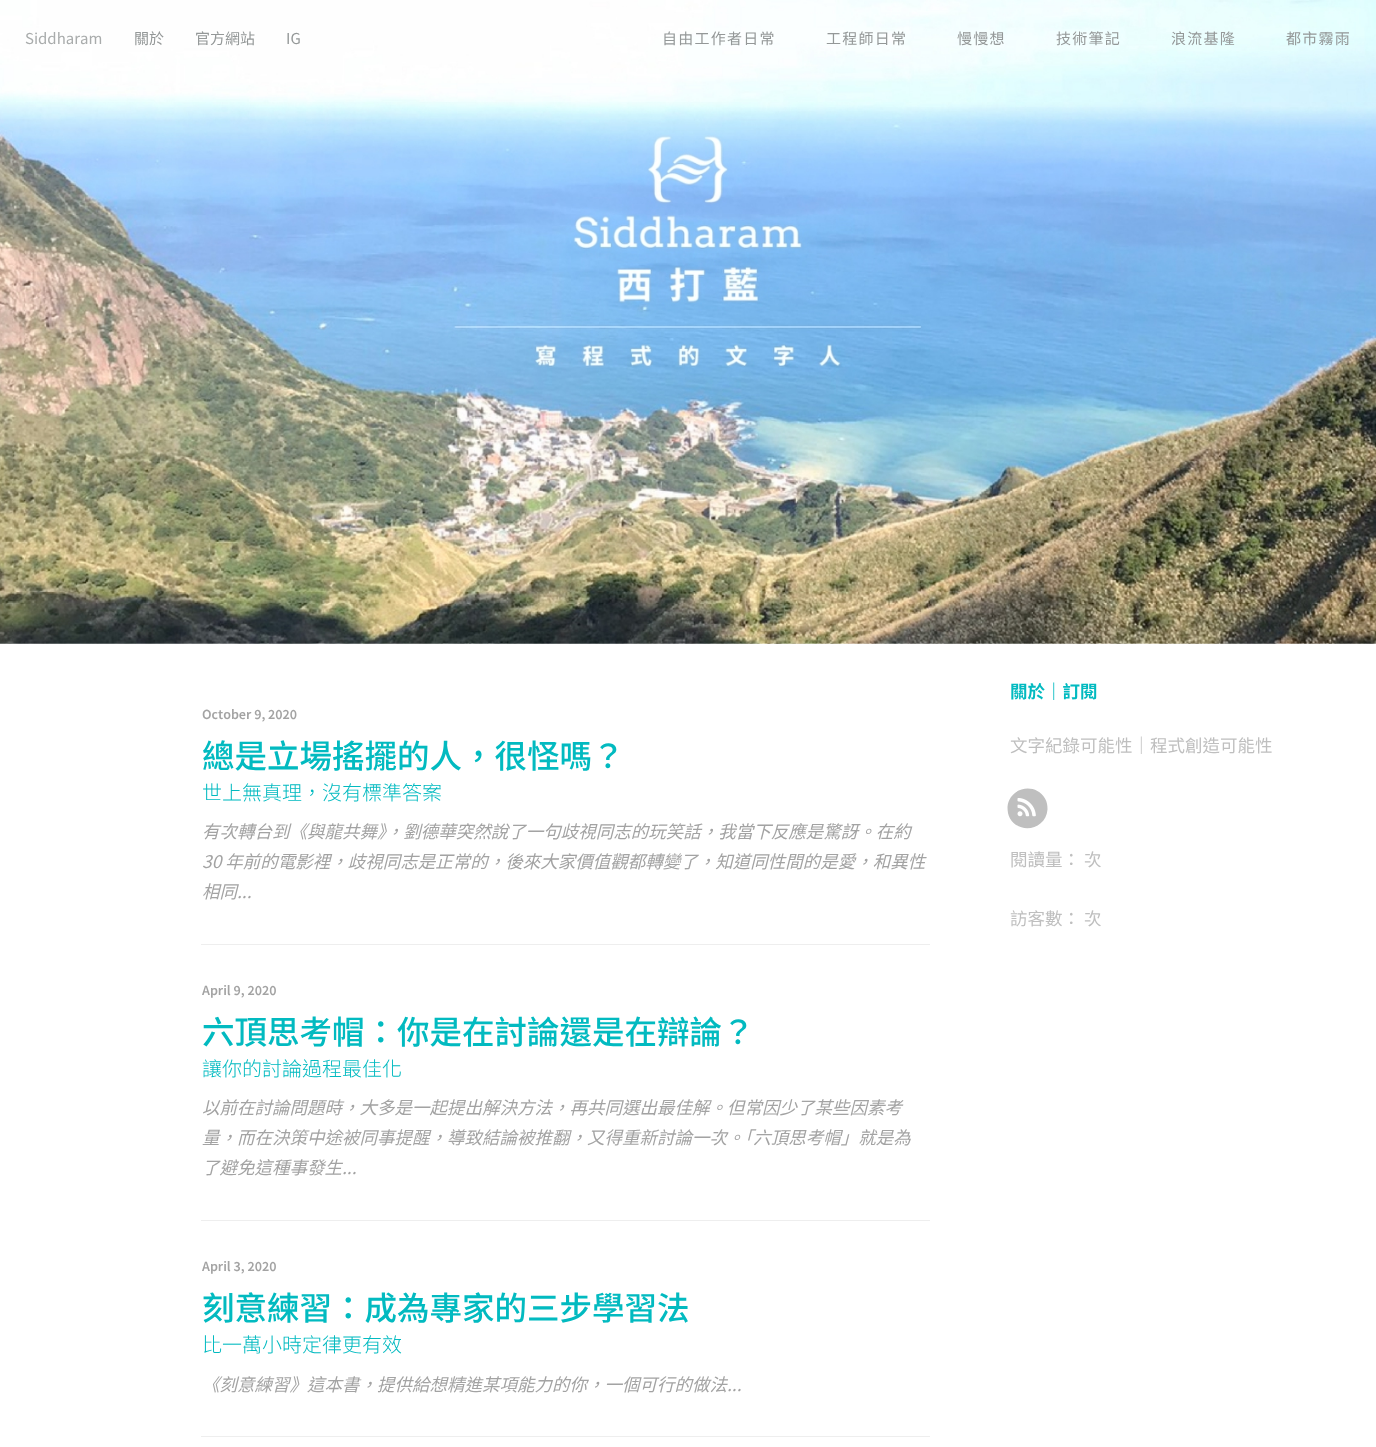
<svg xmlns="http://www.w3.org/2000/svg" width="1376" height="1447">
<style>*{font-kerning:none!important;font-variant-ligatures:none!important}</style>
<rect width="100%" height="100%" fill="#fff"/>
<image x="0" y="0" width="1376" height="644" href="media/1.png"/>
<text x="25" y="44" style="font-family:Noto Sans TC;font-size:15px;fill:#a9acac">Siddharam</text>
<text x="134" y="44" style="font-family:Noto Sans TC;font-size:15px;fill:#949898">關於</text>
<text x="195" y="44" style="font-family:Noto Sans TC;font-size:15px;fill:#949898">官方網站</text>
<text x="286" y="44" style="font-family:Noto Sans TC;font-size:15px;fill:#949898">IG</text>
<text x="662" y="44" style="font-family:Noto Sans TC;font-size:15px;letter-spacing:1.25px;fill:#949898">自由工作者日常</text>
<text x="826" y="44" style="font-family:Noto Sans TC;font-size:15px;letter-spacing:1.25px;fill:#949898">工程師日常</text>
<text x="957" y="44" style="font-family:Noto Sans TC;font-size:15px;letter-spacing:1.25px;fill:#949898">慢慢想</text>
<text x="1056" y="44" style="font-family:Noto Sans TC;font-size:15px;letter-spacing:1.25px;fill:#949898">技術筆記</text>
<text x="1171" y="44" style="font-family:Noto Sans TC;font-size:15px;letter-spacing:1.25px;fill:#949898">浪流基隆</text>
<text x="1286" y="44" style="font-family:Noto Sans TC;font-size:15px;letter-spacing:1.25px;fill:#949898">都市霧雨</text>
<text x="202" y="719" style="font-family:Noto Sans TC;font-size:12.5px;font-weight:600;fill:#a3a3a3">October 9, 2020</text>
<text x="202" y="768" style="font-family:Noto Sans TC;font-size:32.5px;font-weight:500;fill:#02bac0">總是立場搖擺的人，很怪嗎？</text>
<text x="202" y="800" style="font-family:Noto Sans TC;font-size:20px;font-weight:300;fill:#02bac0">世上無真理，沒有標準答案</text>
<text x="202" y="838" style="font-family:Noto Sans TC;font-size:17.5px;font-style:italic;fill:#a3a3a3">有次轉台到《與龍共舞》，劉德華突然說了一句歧視同志的玩笑話，我當下反應是驚訝。在約</text>
<text x="202" y="868" style="font-family:Noto Sans TC;font-size:17.5px;font-style:italic;fill:#a3a3a3">30 年前的電影裡，歧視同志是正常的，後來大家價值觀都轉變了，知道同性間的是愛，和異性</text>
<text x="202" y="898" style="font-family:Noto Sans TC;font-size:17.5px;font-style:italic;fill:#a3a3a3">相同...</text>
<rect x="201" y="944" width="729" height="1" fill="#eee"/>
<text x="202" y="995" style="font-family:Noto Sans TC;font-size:12.5px;font-weight:600;fill:#a3a3a3">April 9, 2020</text>
<text x="202" y="1044" style="font-family:Noto Sans TC;font-size:32.5px;font-weight:500;fill:#02bac0">六頂思考帽：你是在討論還是在辯論？</text>
<text x="202" y="1076" style="font-family:Noto Sans TC;font-size:20px;font-weight:300;fill:#02bac0">讓你的討論過程最佳化</text>
<text x="202" y="1114" style="font-family:Noto Sans TC;font-size:17.5px;font-style:italic;fill:#a3a3a3">以前在討論問題時，大多是一起提出解決方法，再共同選出最佳解。但常因少了某些因素考</text>
<text x="202" y="1144" style="font-family:Noto Sans TC;font-size:17.5px;font-style:italic;fill:#a3a3a3">量，而在決策中途被同事提醒，導致結論被推翻，又得重新討論一次。「六頂思考帽」就是為</text>
<text x="202" y="1174" style="font-family:Noto Sans TC;font-size:17.5px;font-style:italic;fill:#a3a3a3">了避免這種事發生...</text>
<rect x="201" y="1220" width="729" height="1" fill="#eee"/>
<text x="202" y="1271" style="font-family:Noto Sans TC;font-size:12.5px;font-weight:600;fill:#a3a3a3">April 3, 2020</text>
<text x="202" y="1320" style="font-family:Noto Sans TC;font-size:32.5px;font-weight:500;fill:#02bac0">刻意練習：成為專家的三步學習法</text>
<text x="202" y="1352" style="font-family:Noto Sans TC;font-size:20px;font-weight:300;fill:#02bac0">比一萬小時定律更有效</text>
<text x="202" y="1391" style="font-family:Noto Sans TC;font-size:17.5px;font-style:italic;fill:#a3a3a3">《刻意練習》這本書，提供給想精進某項能力的你，一個可行的做法...</text>
<rect x="201" y="1436" width="729" height="1" fill="#eee"/>
<text x="1010" y="698" style="font-family:Noto Sans TC;font-size:17.5px;font-weight:bold;fill:#02bac0">關於｜訂閱</text>
<text x="1010" y="752" style="font-family:Noto Sans TC;font-size:17.5px;fill:#bfbfbf">文字紀錄可能性｜程式創造可能性</text>
<path d="M1045 798.5c2 3 2.5 7 2.5 11c-1.5 20-27.5 25.5-37.5 9c-2-3.5-2.5-7.5-2.5-11.5c1.5-19.5 27.5-25.5 37.5-8.5z" fill="#bfbfbf"/>
<image x="1017" y="798" width="19" height="19" href="media/2.png"/>
<text x="1010" y="866" style="font-family:Noto Sans TC;font-size:17.5px;fill:#bfbfbf">閱讀量： 次</text>
<text x="1010" y="925" style="font-family:Noto Sans TC;font-size:17.5px;fill:#bfbfbf">訪客數： 次</text>
</svg>
